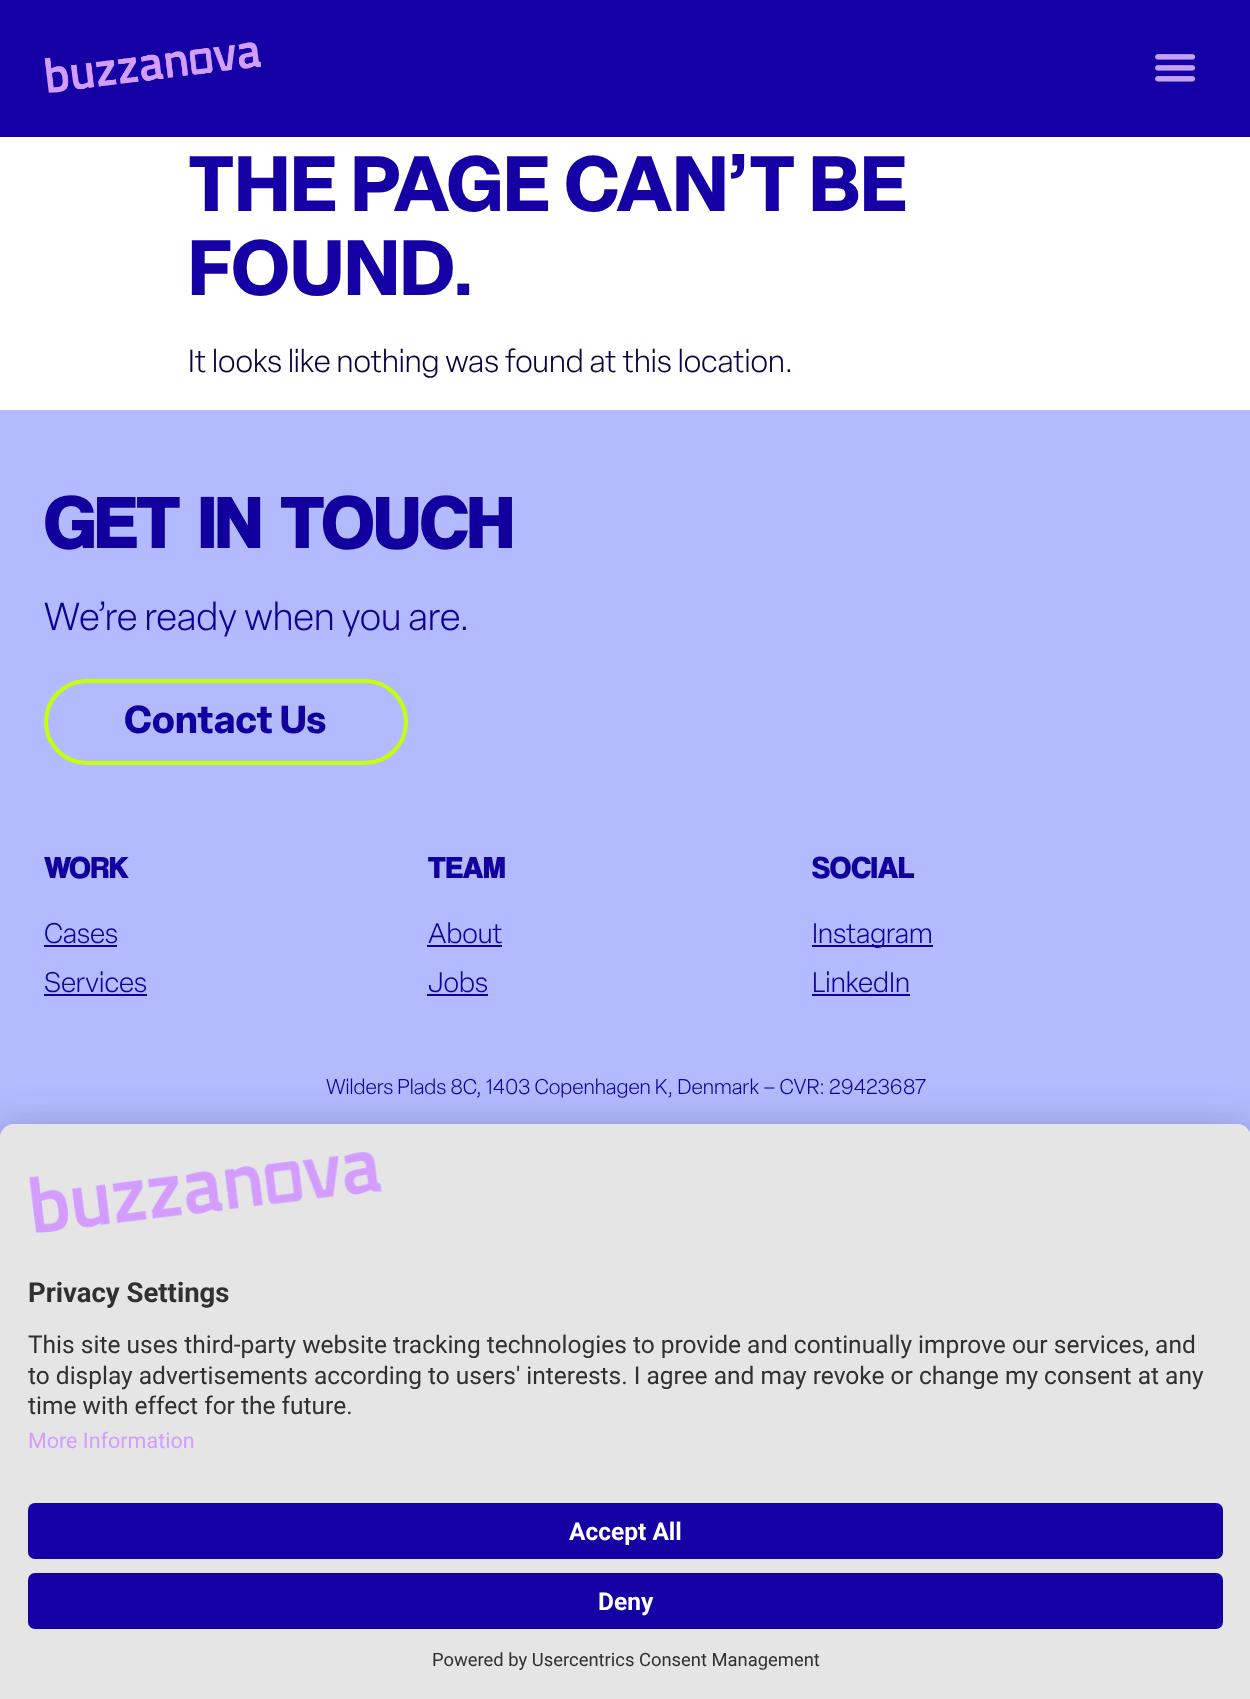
<svg xmlns="http://www.w3.org/2000/svg" width="1250" height="1699">
<rect width="100%" height="100%" fill="#fff"/>
<rect width="1250" height="137" fill="#1400a5"/>
<image x="44" y="42" width="217" height="51" href="media/1.png"/>
<image x="1155" y="54" width="41" height="28" href="media/2.png"/>
<text x="188" y="211" style="font-family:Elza;font-size:77px;font-weight:bold;fill:#1400a5">THE PAGE CAN’T BE</text>
<text x="188" y="295" style="font-family:Elza;font-size:77px;font-weight:bold;fill:#1400a5">FOUND.</text>
<text x="188" y="372" style="font-family:Elza;font-size:31.5px;font-weight:300;fill:#080640">It looks like nothing was found at this location.</text>
<rect y="410" width="1250" height="728" fill="#b3baff"/>
<text x="44" y="548" style="font-family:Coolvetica;font-size:77px;fill:#11009e">GET IN TOUCH</text>
<text x="44" y="630" style="font-family:Elza;font-size:38.5px;font-weight:300;fill:#100090">We’re ready when you are.</text>
<rect x="46" y="681" width="360" height="82" rx="41" fill="none" stroke="#c7ff09" stroke-width="4"/>
<text x="124" y="733" style="font-family:Elza;font-size:38.5px;font-weight:bold;fill:#11009e">Contact Us</text>
<text x="44" y="878" style="font-family:Coolvetica;font-size:31.5px;fill:#11009e">WORK</text>
<text x="44" y="943" style="font-family:Elza;font-size:28px;font-weight:300;fill:#11009e">Cases</text>
<rect x="44" y="945" width="73" height="2" fill="#11009e"/>
<text x="44" y="992" style="font-family:Elza;font-size:28px;font-weight:300;fill:#11009e">Services</text>
<rect x="44" y="994" width="103" height="2" fill="#11009e"/>
<text x="428" y="878" style="font-family:Coolvetica;font-size:31.5px;fill:#11009e">TEAM</text>
<text x="428" y="943" style="font-family:Elza;font-size:28px;font-weight:300;fill:#11009e">About</text>
<rect x="427" y="945" width="75" height="2" fill="#11009e"/>
<text x="428" y="992" style="font-family:Elza;font-size:28px;font-weight:300;fill:#11009e">Jobs</text>
<rect x="427" y="994" width="61" height="2" fill="#11009e"/>
<text x="812" y="878" style="font-family:Coolvetica;font-size:31.5px;fill:#11009e">SOCIAL</text>
<rect x="812" y="945" width="121" height="2" fill="#11009e"/>
<text x="812" y="943" style="font-family:Elza;font-size:28px;font-weight:300;fill:#11009e">Instagram</text>
<text x="812" y="992" style="font-family:Elza;font-size:28px;font-weight:300;fill:#11009e">LinkedIn</text>
<rect x="812" y="994" width="98" height="2" fill="#11009e"/>
<text x="326" y="1094" style="font-family:Elza;font-size:21px;font-weight:300;fill:#11009e">Wilders Plads 8C, 1403 Copenhagen K, Denmark – CVR: 29423687</text>
<rect y="1159" width="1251" height="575" rx="14" fill="#0000004d" filter="blur(24.5px)"/>
<rect y="1132" width="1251" height="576" rx="14" fill="#00000038" filter="blur(23px)"/>
<path d="M14 1124h1223c7.5 0 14 6.5 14 14v561h-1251v-561c0-7.5 6.5-14 14-14z" fill="#e6e5e5"/>
<path d="M14 1124h1223c7.5 0 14 6.5 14 14v344h-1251v-344c0-7.5 6.5-14 14-14z" fill="#e6e5e5"/>
<image x="29" y="1152" width="353" height="81" href="media/3.png"/>
<text x="28" y="1302" style="font-family:Roboto;font-size:27.5px;font-weight:bold;fill:#303030">Privacy Settings</text>
<text x="28" y="1353" style="font-family:Roboto;font-size:24.5px;fill:#303030">This site uses third-party website tracking technologies to provide and continually improve our services, and</text>
<text x="28" y="1384" style="font-family:Roboto;font-size:24.5px;fill:#303030">to display advertisements according to users' interests. I agree and may revoke or change my consent at any</text>
<text x="28" y="1414" style="font-family:Roboto;font-size:24.5px;fill:#303030">time with effect for the future.</text>
<text x="28" y="1448" style="font-family:Roboto;font-size:21.5px;fill:#d29dff">More Information</text>
<rect x="28" y="1503" width="1195" height="56" rx="7" fill="#1400a5"/>
<text x="569" y="1540" style="font-family:Roboto;font-size:24.5px;font-weight:bold;fill:#fff">Accept All</text>
<rect x="28" y="1573" width="1195" height="56" rx="7" fill="#1400a5"/>
<text x="598" y="1610" style="font-family:Roboto;font-size:24.5px;font-weight:bold;fill:#fff">Deny</text>
<text x="432" y="1666" style="font-family:Roboto;font-size:18.4px;fill:#303030">Powered by Usercentrics Consent Management</text>
</svg>
